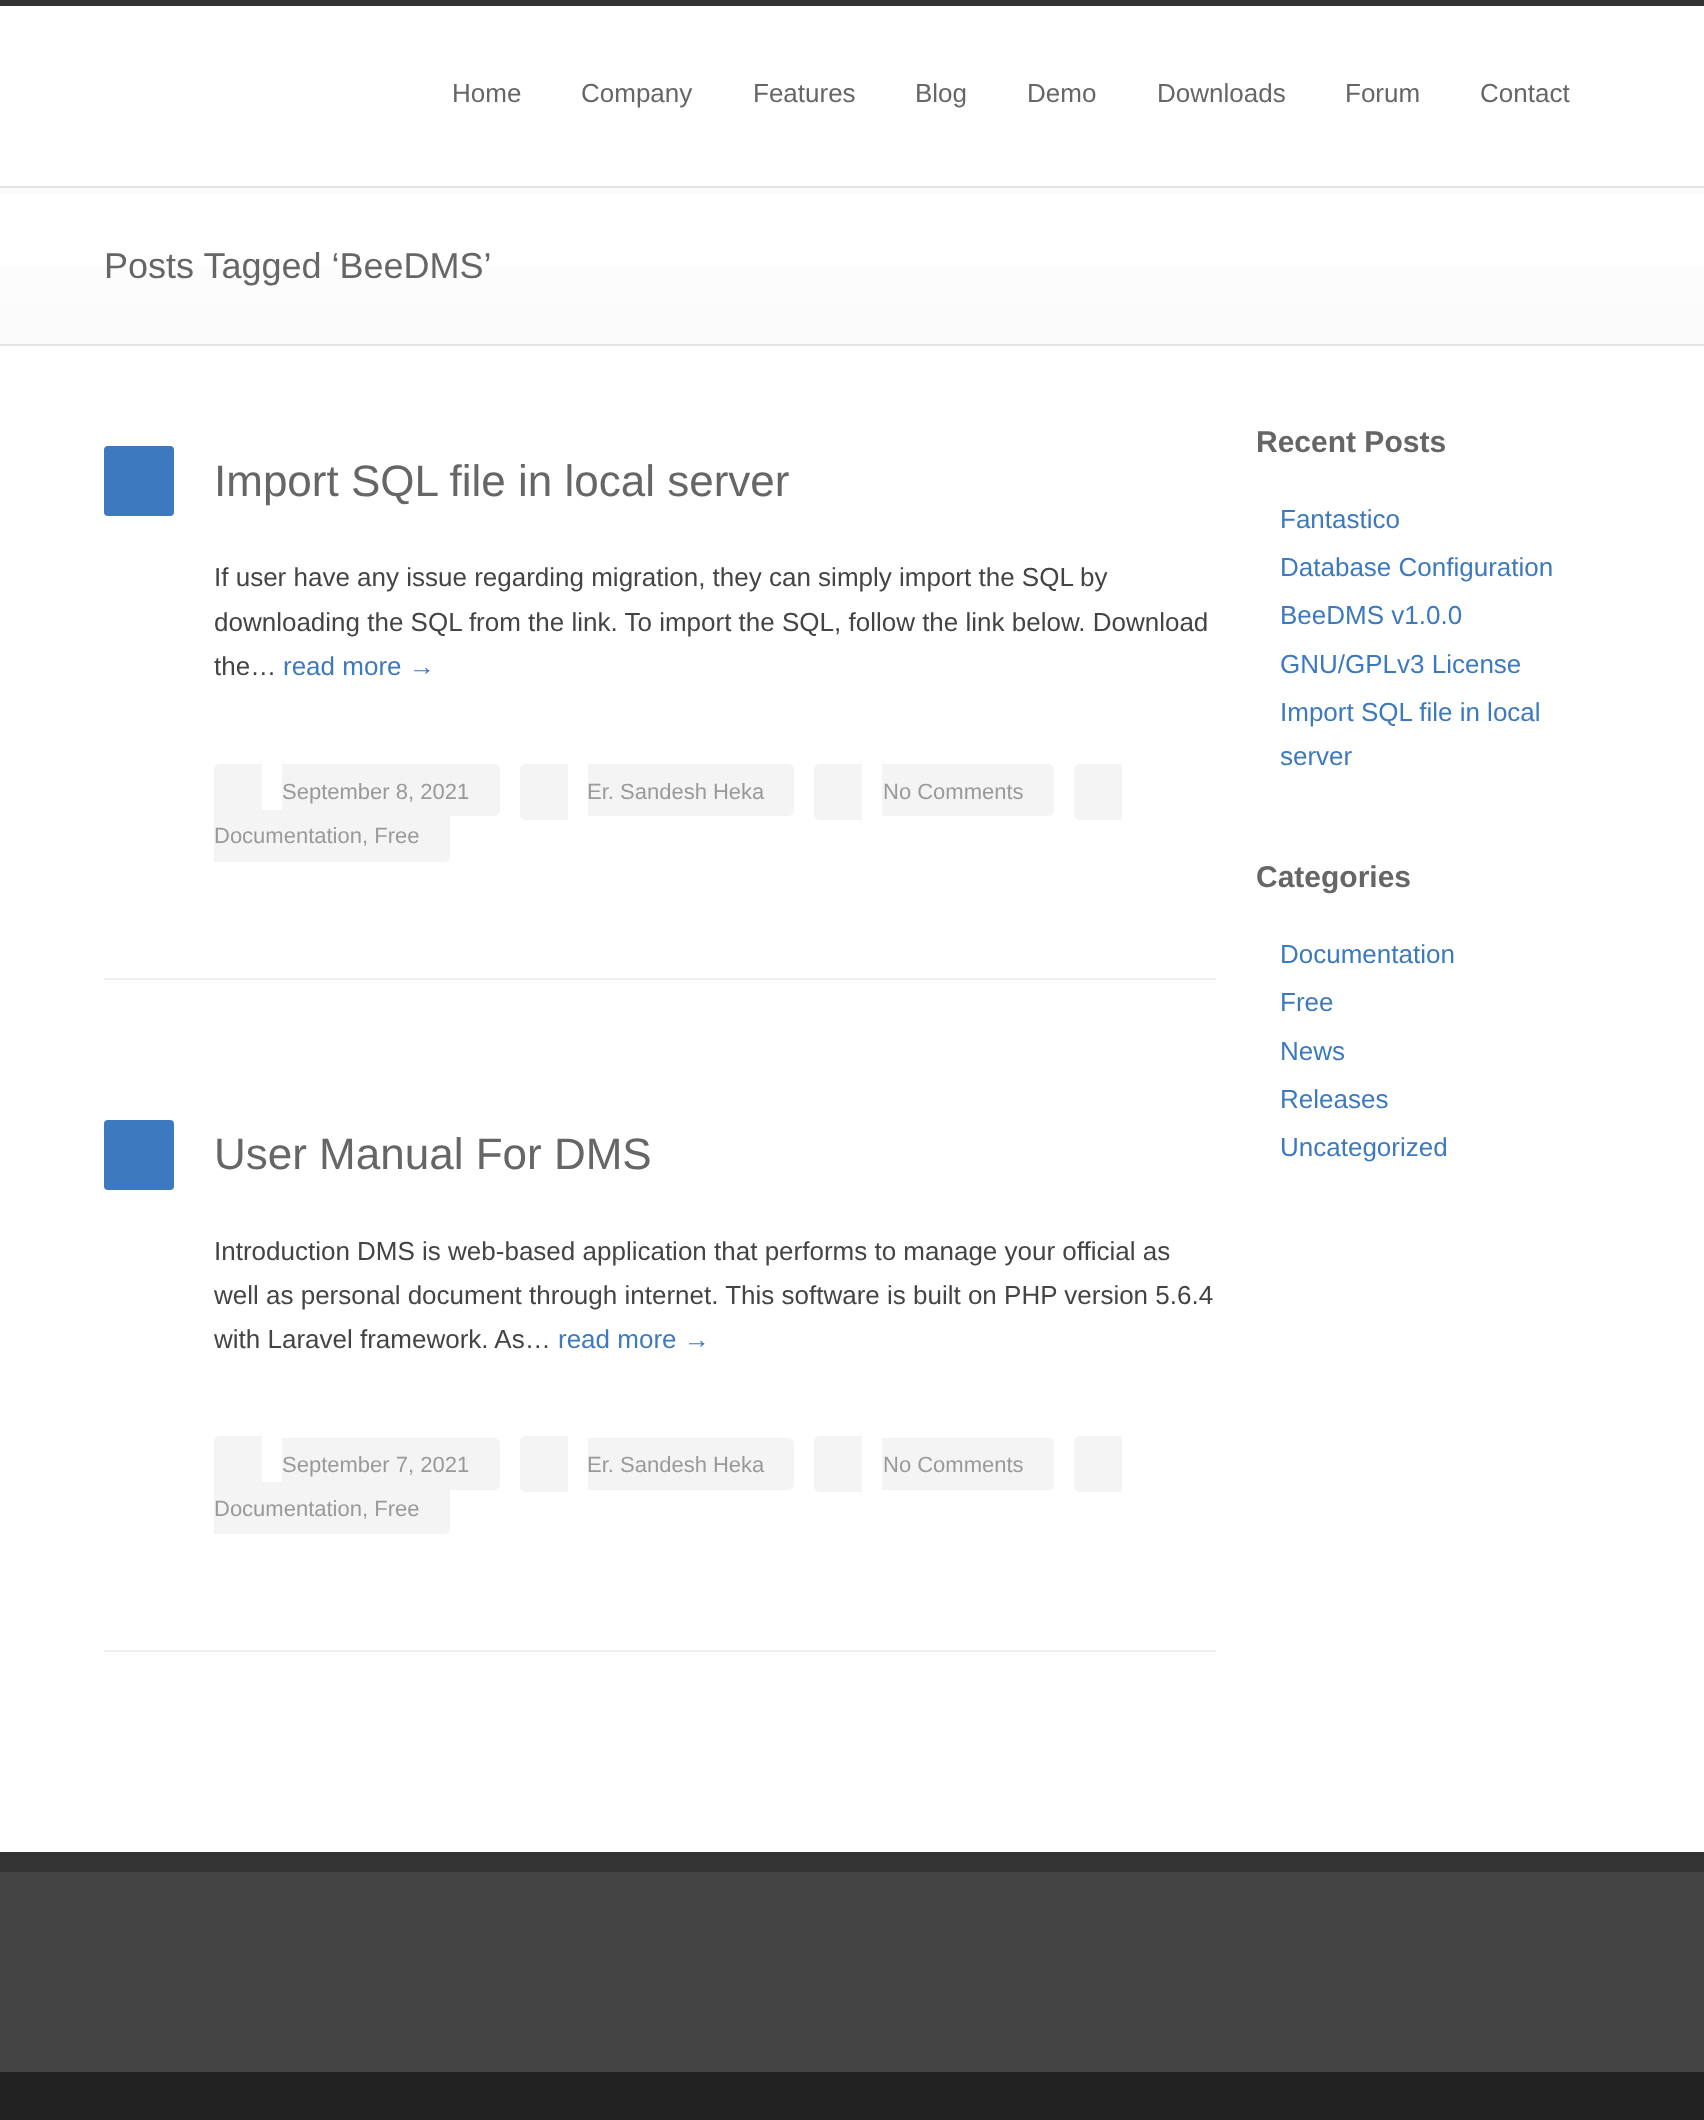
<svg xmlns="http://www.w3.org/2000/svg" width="1704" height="2120">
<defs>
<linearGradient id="g1" gradientUnits="userSpaceOnUse" x1="852" y1="344" x2="852" y2="188"><stop offset="0" stop-color="#fafafa"/><stop offset="1" stop-color="#fff"/></linearGradient>
</defs>
<rect width="100%" height="100%" fill="#fff"/>
<rect width="1704" height="6" fill="#333"/>
<text x="452" y="102" style="font-family:Liberation Sans;font-size:26px;fill:#666">Home</text>
<text x="581" y="102" style="font-family:Liberation Sans;font-size:26px;fill:#666">Company</text>
<text x="753" y="102" style="font-family:Liberation Sans;font-size:26px;fill:#666">Features</text>
<text x="915" y="102" style="font-family:Liberation Sans;font-size:26px;fill:#666">Blog</text>
<text x="1027" y="102" style="font-family:Liberation Sans;font-size:26px;fill:#666">Demo</text>
<text x="1157" y="102" style="font-family:Liberation Sans;font-size:26px;fill:#666">Downloads</text>
<text x="1345" y="102" style="font-family:Liberation Sans;font-size:26px;fill:#666">Forum</text>
<text x="1480" y="102" style="font-family:Liberation Sans;font-size:26px;fill:#666">Contact</text>
<rect y="266" width="1704" height="78" fill="url(#g1)"/>
<rect y="188" width="1704" height="6" fill="#fafafa"/>
<rect y="186" width="1704" height="2" fill="#e4e4e4"/>
<rect y="344" width="1704" height="2" fill="#e4e4e4"/>
<text x="104" y="278" style="font-family:Liberation Sans;font-size:36px;fill:#666">Posts Tagged ‘BeeDMS’</text>
<rect x="104" y="978" width="1112" height="2" fill="#efefef"/>
<rect x="104" y="446" width="70" height="70" rx="4" fill="#3d79bf"/>
<text x="214" y="496" style="font-family:Liberation Sans;font-size:44px;fill:#666">Import SQL file in local server</text>
<text x="214" y="586" style="font-family:Liberation Sans;font-size:26px;fill:#444">If user have any issue regarding migration, they can simply import the SQL by</text>
<text x="214" y="631" style="font-family:Liberation Sans;font-size:26px;fill:#444">downloading the SQL from the link. To import the SQL, follow the link below. Download</text>
<text x="214" y="675" style="font-family:Liberation Sans;font-size:26px;fill:#444">the…</text>
<text x="283" y="675" style="font-family:Liberation Sans;font-size:26px;fill:#3d79bf">read more →</text>
<path d="M282 764h212c3.5 0 6 2.5 6 6v40c0 3.5-2.5 6-6 6h-212z" fill="#f4f4f4"/>
<text x="282" y="799" style="font-family:Liberation Sans;font-size:22px;fill:#999">September 8, 2021</text>
<path d="M220 764h42v56h-42c-3.5 0-6-2.5-6-6v-44c0-3.5 2.5-6 6-6z" fill="#f4f4f4"/>
<path d="M588 764h200c3.5 0 6 2.5 6 6v40c0 3.5-2.5 6-6 6h-200z" fill="#f4f4f4"/>
<text x="587" y="799" style="font-family:Liberation Sans;font-size:22px;fill:#999">Er. Sandesh Heka</text>
<path d="M526 764h42v56h-42c-3.5 0-6-2.5-6-6v-44c0-3.5 2.5-6 6-6z" fill="#f4f4f4"/>
<path d="M882 764h166c3.5 0 6 2.5 6 6v40c0 3.5-2.5 6-6 6h-166z" fill="#f4f4f4"/>
<text x="883" y="799" style="font-family:Liberation Sans;font-size:22px;fill:#999">No Comments</text>
<path d="M820 764h42v56h-42c-3.5 0-6-2.5-6-6v-44c0-3.5 2.5-6 6-6z" fill="#f4f4f4"/>
<rect x="214" y="810" width="148" height="52" fill="#f4f4f4"/>
<rect x="362" y="816" width="12" height="46" fill="#f4f4f4"/>
<path d="M374 810h70c3.5 0 6 2.5 6 6v40c0 3.5-2.5 6-6 6h-70z" fill="#f4f4f4"/>
<text x="214" y="843" style="font-family:Liberation Sans;font-size:22px;fill:#999">Documentation, Free</text>
<path d="M1080 764h42v56h-42c-3.5 0-6-2.5-6-6v-44c0-3.5 2.5-6 6-6z" fill="#f4f4f4"/>
<rect x="104" y="1650" width="1112" height="2" fill="#efefef"/>
<rect x="104" y="1120" width="70" height="70" rx="4" fill="#3d79bf"/>
<text x="214" y="1169" style="font-family:Liberation Sans;font-size:44px;fill:#666">User Manual For DMS</text>
<text x="214" y="1260" style="font-family:Liberation Sans;font-size:26px;fill:#444">Introduction DMS is web-based application that performs to manage your official as</text>
<text x="214" y="1304" style="font-family:Liberation Sans;font-size:26px;fill:#444">well as personal document through internet. This software is built on PHP version 5.6.4</text>
<text x="214" y="1348" style="font-family:Liberation Sans;font-size:26px;fill:#444">with Laravel framework. As…</text>
<text x="558" y="1348" style="font-family:Liberation Sans;font-size:26px;fill:#3d79bf">read more →</text>
<path d="M282 1438h212c3.5 0 6 2.5 6 6v40c0 3.5-2.5 6-6 6h-212z" fill="#f4f4f4"/>
<text x="282" y="1472" style="font-family:Liberation Sans;font-size:22px;fill:#999">September 7, 2021</text>
<path d="M220 1436h42v56h-42c-3.5 0-6-2.5-6-6v-44c0-3.5 2.5-6 6-6z" fill="#f4f4f4"/>
<path d="M588 1438h200c3.5 0 6 2.5 6 6v40c0 3.5-2.5 6-6 6h-200z" fill="#f4f4f4"/>
<text x="587" y="1472" style="font-family:Liberation Sans;font-size:22px;fill:#999">Er. Sandesh Heka</text>
<path d="M526 1436h42v56h-42c-3.5 0-6-2.5-6-6v-44c0-3.5 2.5-6 6-6z" fill="#f4f4f4"/>
<path d="M882 1438h166c3.5 0 6 2.5 6 6v40c0 3.5-2.5 6-6 6h-166z" fill="#f4f4f4"/>
<text x="883" y="1472" style="font-family:Liberation Sans;font-size:22px;fill:#999">No Comments</text>
<path d="M820 1436h42v56h-42c-3.5 0-6-2.5-6-6v-44c0-3.5 2.5-6 6-6z" fill="#f4f4f4"/>
<rect x="214" y="1482" width="148" height="52" fill="#f4f4f4"/>
<rect x="362" y="1490" width="12" height="44" fill="#f4f4f4"/>
<path d="M374 1482h70c3.5 0 6 2.5 6 6v40c0 3.5-2.5 6-6 6h-70z" fill="#f4f4f4"/>
<text x="214" y="1516" style="font-family:Liberation Sans;font-size:22px;fill:#999">Documentation, Free</text>
<path d="M1080 1436h42v56h-42c-3.5 0-6-2.5-6-6v-44c0-3.5 2.5-6 6-6z" fill="#f4f4f4"/>
<text x="1256" y="452" style="font-family:Liberation Sans;font-size:30px;font-weight:bold;fill:#666">Recent Posts</text>
<text x="1280" y="528" style="font-family:Liberation Sans;font-size:26px;fill:#3d79bf">Fantastico</text>
<text x="1280" y="576" style="font-family:Liberation Sans;font-size:26px;fill:#3d79bf">Database Configuration</text>
<text x="1280" y="624" style="font-family:Liberation Sans;font-size:26px;fill:#3d79bf">BeeDMS v1.0.0</text>
<text x="1280" y="673" style="font-family:Liberation Sans;font-size:26px;fill:#3d79bf">GNU/GPLv3 License</text>
<text x="1280" y="721" style="font-family:Liberation Sans;font-size:26px;fill:#3d79bf">Import SQL file in local</text>
<text x="1280" y="765" style="font-family:Liberation Sans;font-size:26px;fill:#3d79bf">server</text>
<text x="1256" y="887" style="font-family:Liberation Sans;font-size:30px;font-weight:bold;fill:#666">Categories</text>
<text x="1280" y="963" style="font-family:Liberation Sans;font-size:26px;fill:#3d79bf">Documentation</text>
<text x="1280" y="1011" style="font-family:Liberation Sans;font-size:26px;fill:#3d79bf">Free</text>
<text x="1280" y="1060" style="font-family:Liberation Sans;font-size:26px;fill:#3d79bf">News</text>
<text x="1280" y="1108" style="font-family:Liberation Sans;font-size:26px;fill:#3d79bf">Releases</text>
<text x="1280" y="1156" style="font-family:Liberation Sans;font-size:26px;fill:#3d79bf">Uncategorized</text>
<rect y="1872" width="1704" height="200" fill="#444"/>
<rect y="1852" width="1704" height="20" fill="#333"/>
<rect y="2072" width="1704" height="48" fill="#222"/>
</svg>
